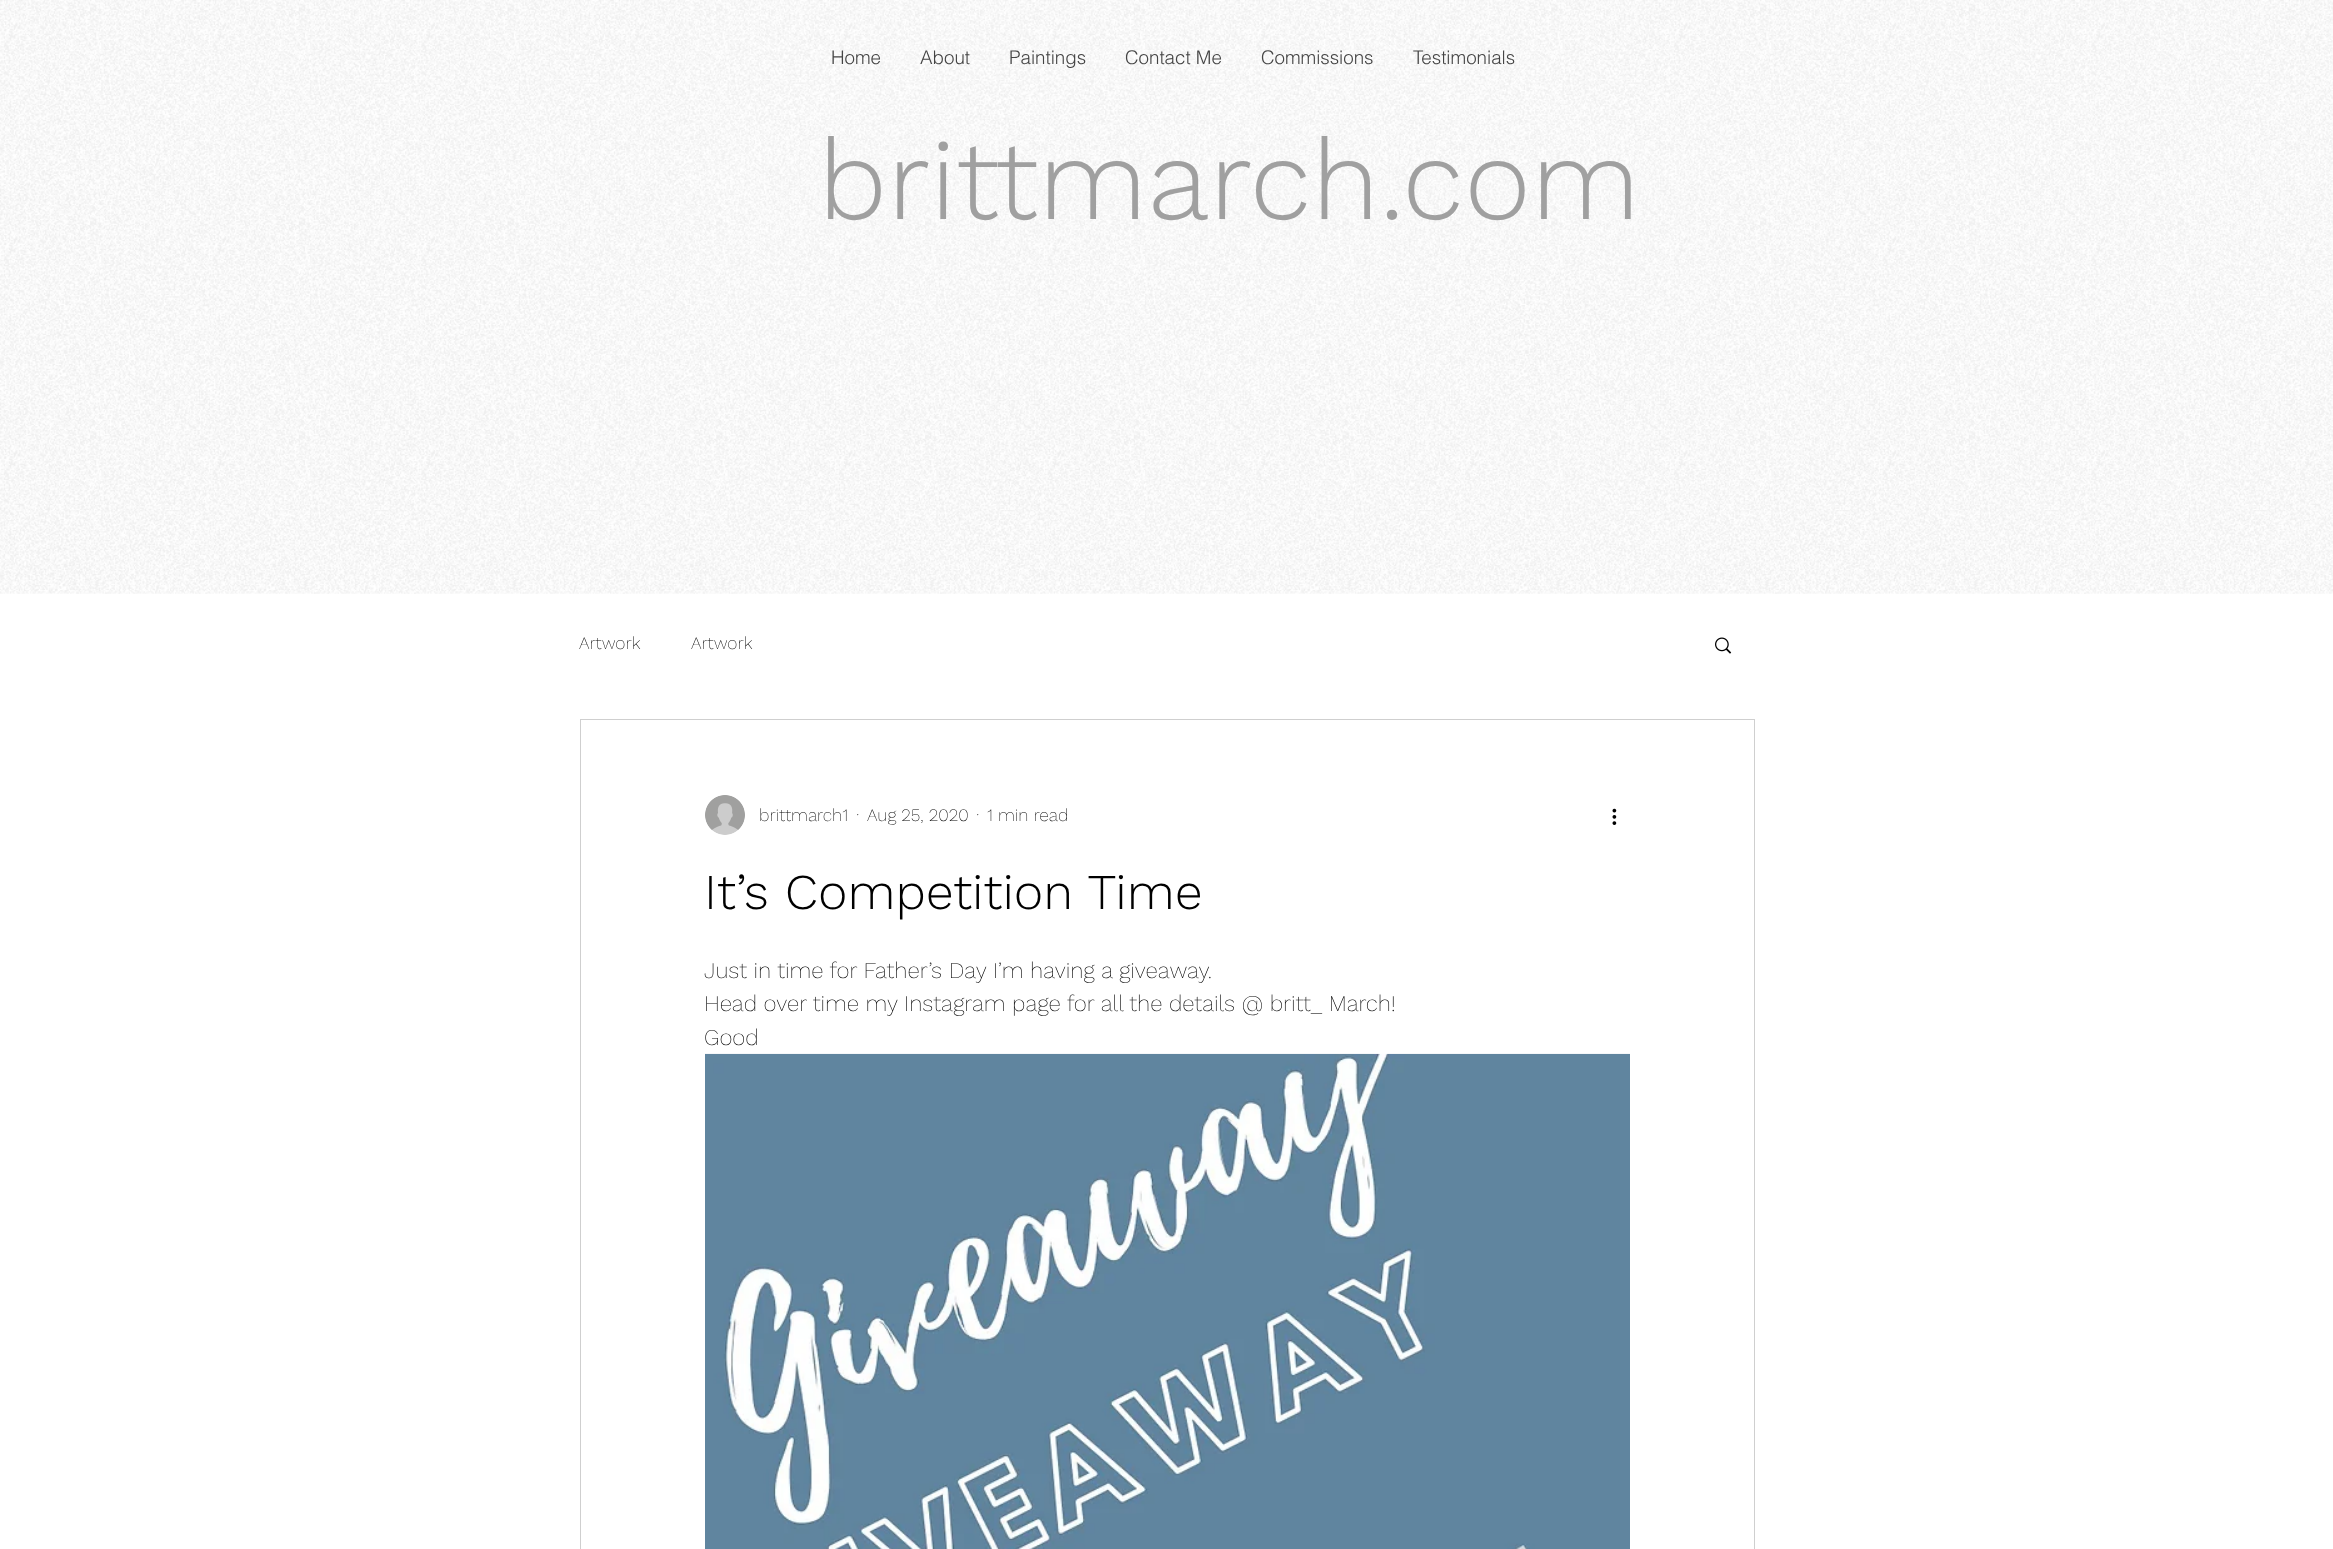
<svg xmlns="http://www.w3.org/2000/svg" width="2333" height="1549">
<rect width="100%" height="100%" fill="#fff"/>
<image x="0" y="0" width="2333" height="594" href="media/1.png"/>
<text x="831" y="64" style="font-family:helvetica;font-size:18.75px;font-weight:300;fill:#444">Home</text>
<text x="920" y="64" style="font-family:helvetica;font-size:18.75px;font-weight:300;fill:#444">About</text>
<text x="1009" y="64" style="font-family:helvetica;font-size:18.75px;font-weight:300;fill:#444">Paintings</text>
<text x="1125" y="64" style="font-family:helvetica;font-size:18.75px;font-weight:300;fill:#444">Contact Me</text>
<text x="1261" y="64" style="font-family:helvetica;font-size:18.75px;font-weight:300;fill:#444">Commissions</text>
<text x="1413" y="64" style="font-family:helvetica;font-size:18.75px;font-weight:300;fill:#444">Testimonials</text>
<text x="818" y="219" style="font-family:Work Sans;font-size:113.75px;font-weight:300;fill:#a0a0a0">brittmarch.com</text>
<text x="579" y="649" style="font-family:Work Sans;font-size:17.5px;font-weight:200;fill:#000">Artwork</text>
<text x="691" y="649" style="font-family:Work Sans;font-size:17.5px;font-weight:200;fill:#000">Artwork</text>
<image x="1715" y="637" width="17" height="17" href="media/2.png"/>
<rect x="580.5" y="719.5" width="1174" height="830" fill="none" stroke="#cfcfcf"/>
<image x="705" y="795" width="40" height="40" href="media/3.png"/>
<text x="759" y="821" style="font-family:Work Sans;font-size:17.5px;font-weight:200;fill:#000">brittmarch1</text>
<text x="856" y="821" style="font-family:Work Sans;font-size:17.5px;font-weight:200;fill:#000">·</text>
<text x="867" y="821" style="font-family:Work Sans;font-size:17.5px;font-weight:200;fill:#000">Aug 25, 2020</text>
<text x="976" y="821" style="font-family:Work Sans;font-size:17.5px;font-weight:200;fill:#000">·</text>
<text x="987" y="821" style="font-family:Work Sans;font-size:17.5px;font-weight:200;fill:#000">1 min read</text>
<image x="1612" y="808" width="5" height="17" href="media/4.png"/>
<text x="704" y="909" style="font-family:Work Sans;font-size:50px;font-weight:300;fill:#000">It’s Competition Time</text>
<text x="704" y="978" style="font-family:Work Sans;font-size:22.5px;font-weight:200;fill:#000">Just in time for Father’s Day I’m having a giveaway.</text>
<text x="704" y="1011" style="font-family:Work Sans;font-size:22.5px;font-weight:200;fill:#000">Head over time my Instagram page for all the details @ britt_ March!</text>
<text x="704" y="1045" style="font-family:Work Sans;font-size:22.5px;font-weight:200;fill:#000">Good</text>
<image x="705" y="1053" width="925" height="496" href="media/5.png"/>
</svg>
